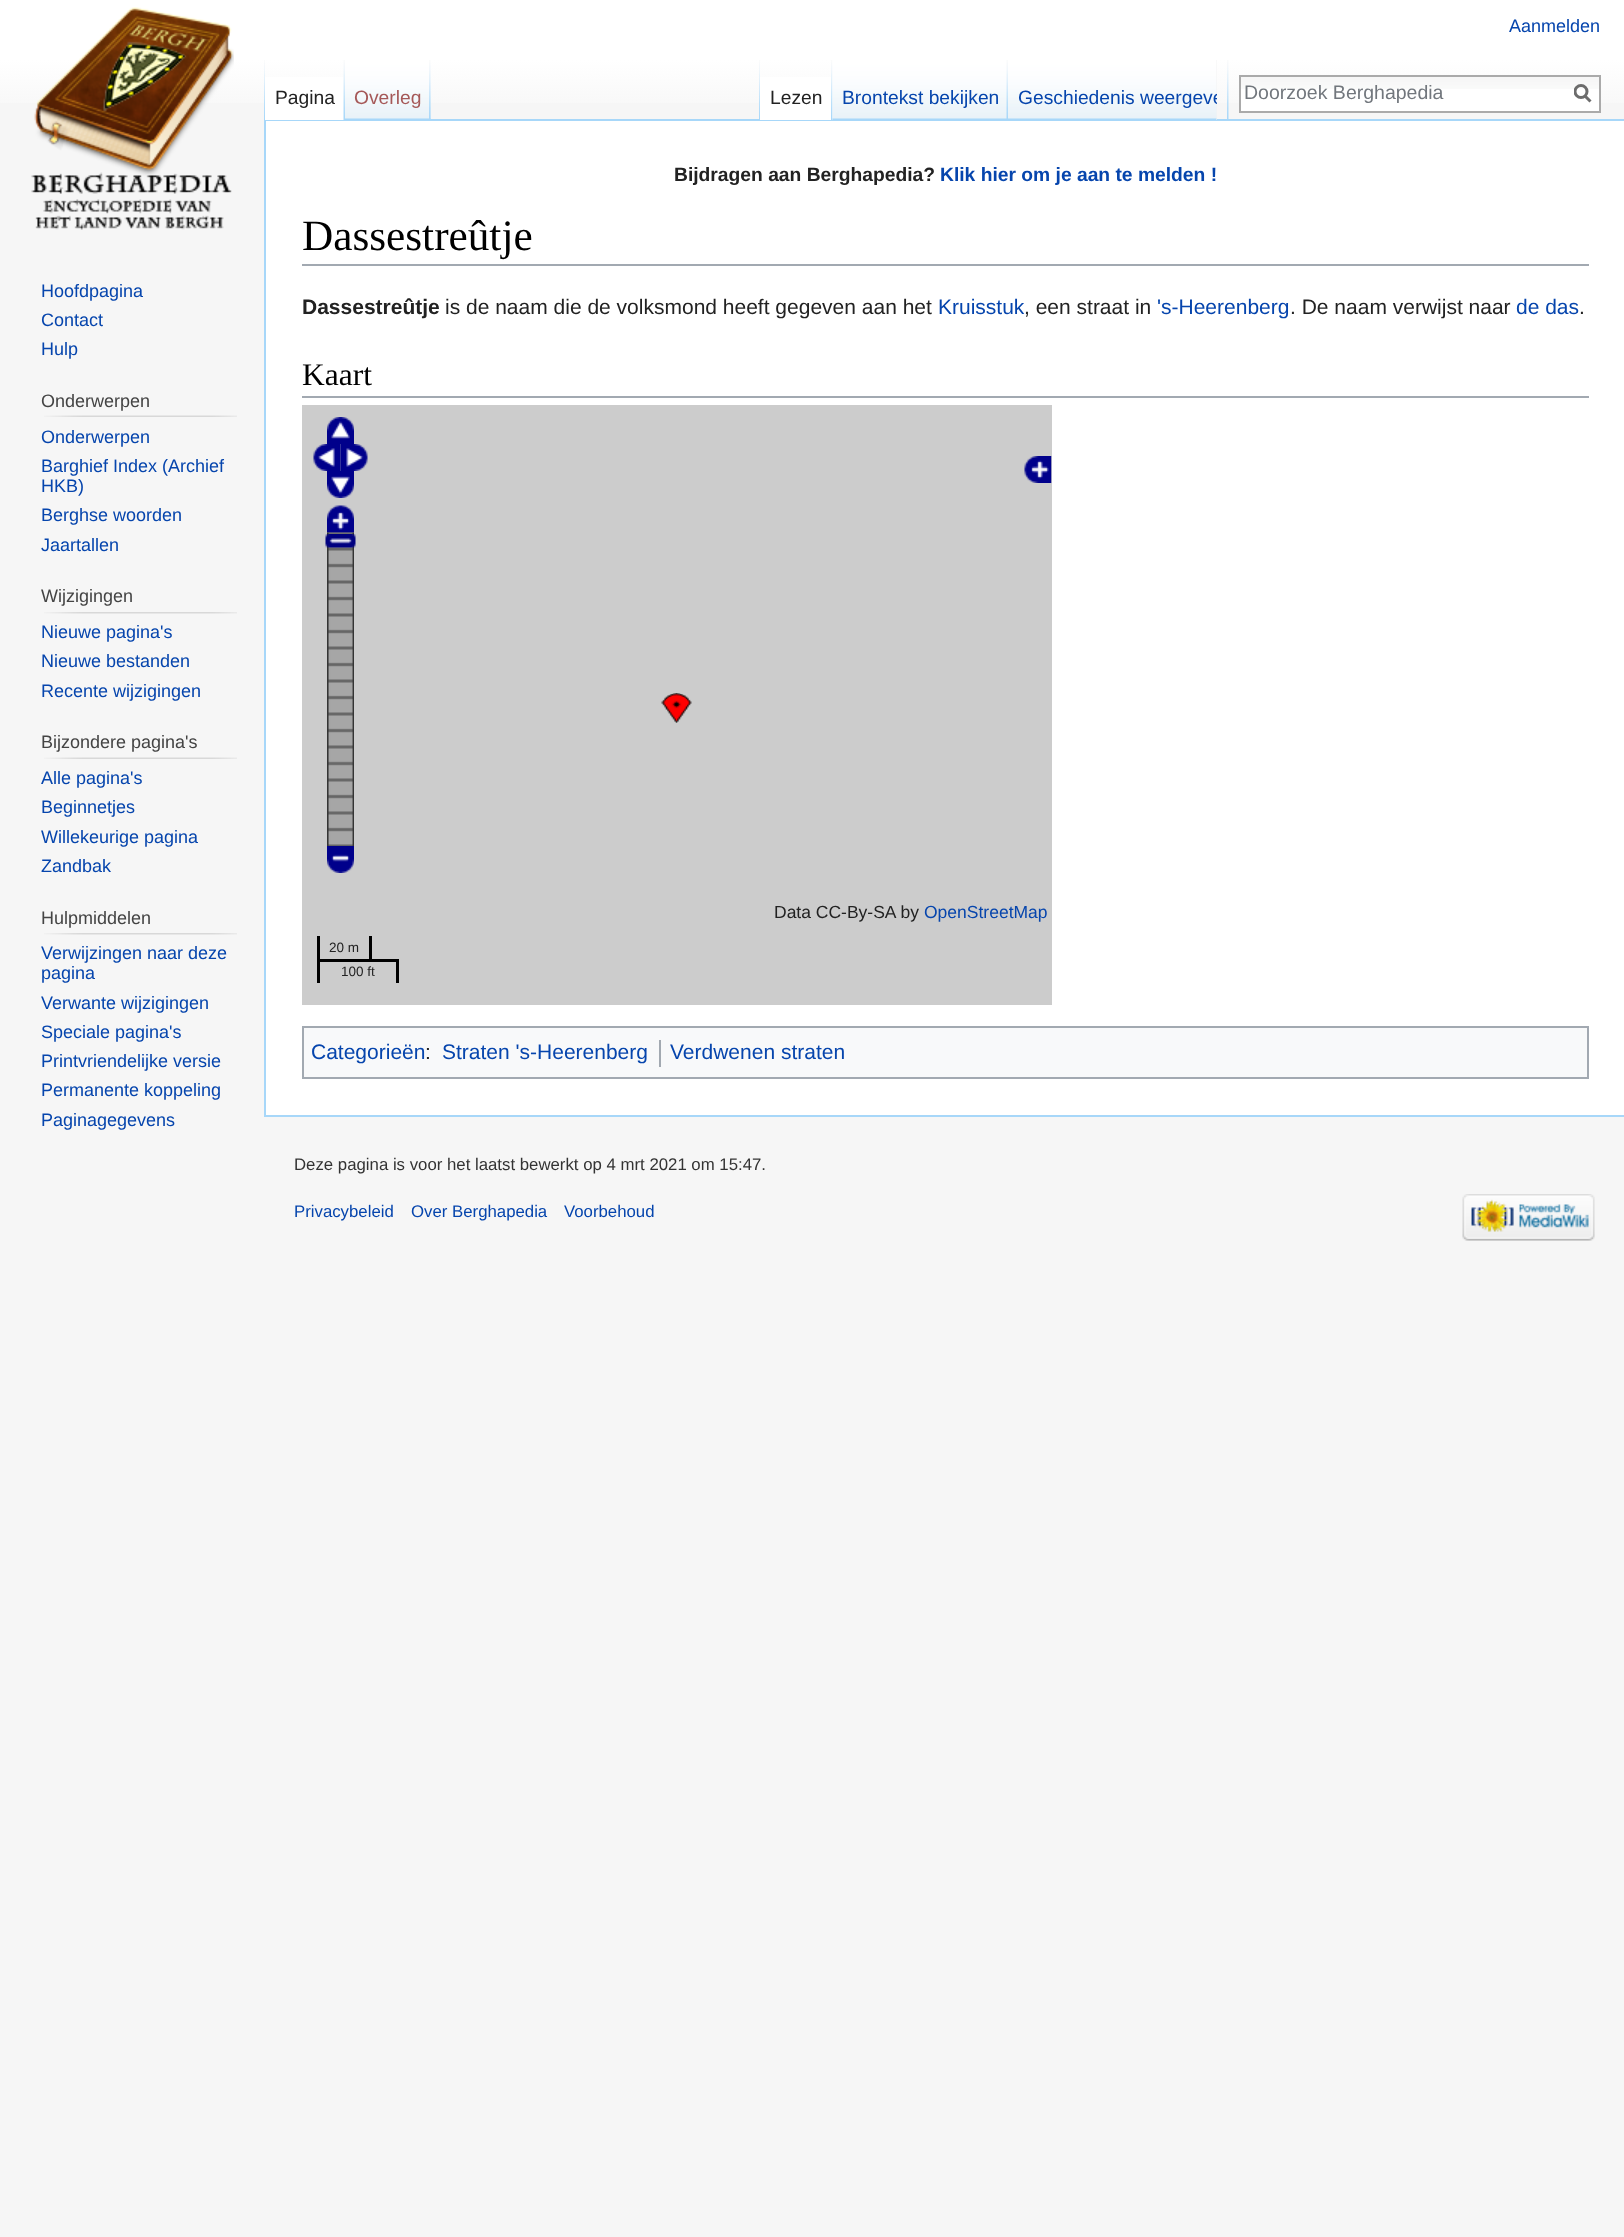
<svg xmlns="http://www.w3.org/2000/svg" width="1624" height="2237">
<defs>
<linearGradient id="g1" gradientUnits="userSpaceOnUse" x1="812" y1="0" x2="812" y2="120"><stop offset="0.5" stop-color="#fff"/><stop offset="1" stop-color="#f6f6f6"/></linearGradient>
<clipPath id="clip1"><rect x="1008" y="60" width="209" height="60"/></clipPath>
<clipPath id="clip2"><rect x="1574" y="84" width="18" height="20"/></clipPath>
</defs>
<rect width="100%" height="100%" fill="#f6f6f6"/>
<rect width="1624" height="103" fill="url(#g1)"/>
<text x="1509" y="32" style="font-family:Liberation Sans;font-size:18px;fill:#0645ad">Aanmelden</text>
<image x="264" y="60" width="1" height="59" href="media/1.png"/>
<image x="430" y="60" width="1" height="59" href="media/2.png"/>
<rect x="264" y="119" width="1360" height="2" fill="#a7d7f9"/>
<rect x="264" y="1115" width="1360" height="2" fill="#a7d7f9"/>
<rect x="264" y="119" width="2" height="997" fill="#a7d7f9"/>
<rect x="265" y="77" width="79" height="43" fill="#fff"/>
<image x="343" y="60" width="2" height="60" href="media/3.png"/>
<text x="275" y="104" style="font-family:Liberation Sans;font-size:19.25px;fill:#222">Pagina</text>
<image x="345" y="60" width="86" height="60" href="media/4.png"/>
<image x="429" y="60" width="2" height="60" href="media/5.png"/>
<text x="354" y="104" style="font-family:Liberation Sans;font-size:19.25px;fill:#a55858">Overleg</text>
<image x="759" y="60" width="1" height="59" href="media/1.png"/>
<rect x="760" y="77" width="73" height="43" fill="#fff"/>
<image x="831" y="60" width="2" height="60" href="media/6.png"/>
<text x="770" y="104" style="font-family:Liberation Sans;font-size:19.25px;fill:#222">Lezen</text>
<image x="832" y="60" width="176" height="60" href="media/7.png"/>
<image x="1006" y="60" width="2" height="59" href="media/8.png"/>
<text x="842" y="104" style="font-family:Liberation Sans;font-size:19.25px;fill:#0645ad">Brontekst bekijken</text>
<rect x="1216" y="60" width="1" height="60" fill="#f3f3f3"/>
<image x="1008" y="60" width="209" height="60" href="media/9.png"/>
<g clip-path="url(#clip1)">
<text x="1018" y="104" style="font-family:Liberation Sans;font-size:19.25px;fill:#0645ad">Geschiedenis weergeve</text>
</g>
<image x="1227" y="60" width="2" height="59" href="media/10.png"/>
<rect x="1241" y="89" width="358" height="22" fill="#fff"/>
<image x="1241" y="77" width="358" height="12" href="media/11.png"/>
<rect x="1240" y="76" width="360" height="36" fill="none" stroke="#aaa" stroke-width="2"/>
<text x="1244" y="99" style="font-family:Liberation Sans;font-size:19.5px;fill:#72777d">Doorzoek Berghapedia</text>
<path d="M1590.5 101.5l-6-6" fill="none" stroke="#6c6c6c" stroke-width="3"/>
<g clip-path="url(#clip2)">
<circle cx="1581" cy="91.5" r="6" fill="none" stroke="#6c6c6c" stroke-width="3"/>
</g>
<image x="31" y="7" width="203" height="223" href="media/12.png"/>
<text x="41" y="297" style="font-family:Liberation Sans;font-size:18px;fill:#0645ad">Hoofdpagina</text>
<text x="41" y="326" style="font-family:Liberation Sans;font-size:18px;fill:#0645ad">Contact</text>
<text x="41" y="355" style="font-family:Liberation Sans;font-size:18px;fill:#0645ad">Hulp</text>
<text x="41" y="407" style="font-family:Liberation Sans;font-size:18px;fill:#444">Onderwerpen</text>
<image x="44" y="415" width="193" height="2" href="media/13.png"/>
<text x="41" y="443" style="font-family:Liberation Sans;font-size:18px;fill:#0645ad">Onderwerpen</text>
<text x="41" y="472" style="font-family:Liberation Sans;font-size:18px;fill:#0645ad">Barghief Index (Archief</text>
<text x="41" y="492" style="font-family:Liberation Sans;font-size:18px;fill:#0645ad">HKB)</text>
<text x="41" y="521" style="font-family:Liberation Sans;font-size:18px;fill:#0645ad">Berghse woorden</text>
<text x="41" y="551" style="font-family:Liberation Sans;font-size:18px;fill:#0645ad">Jaartallen</text>
<text x="41" y="602" style="font-family:Liberation Sans;font-size:18px;fill:#444">Wijzigingen</text>
<image x="44" y="612" width="193" height="2" href="media/14.png"/>
<text x="41" y="638" style="font-family:Liberation Sans;font-size:18px;fill:#0645ad">Nieuwe pagina's</text>
<text x="41" y="667" style="font-family:Liberation Sans;font-size:18px;fill:#0645ad">Nieuwe bestanden</text>
<text x="41" y="697" style="font-family:Liberation Sans;font-size:18px;fill:#0645ad">Recente wijzigingen</text>
<text x="41" y="748" style="font-family:Liberation Sans;font-size:18px;fill:#444">Bijzondere pagina's</text>
<image x="44" y="757" width="193" height="2" href="media/13.png"/>
<text x="41" y="784" style="font-family:Liberation Sans;font-size:18px;fill:#0645ad">Alle pagina's</text>
<text x="41" y="813" style="font-family:Liberation Sans;font-size:18px;fill:#0645ad">Beginnetjes</text>
<text x="41" y="843" style="font-family:Liberation Sans;font-size:18px;fill:#0645ad">Willekeurige pagina</text>
<text x="41" y="872" style="font-family:Liberation Sans;font-size:18px;fill:#0645ad">Zandbak</text>
<text x="41" y="924" style="font-family:Liberation Sans;font-size:18px;fill:#444">Hulpmiddelen</text>
<image x="44" y="933" width="193" height="2" href="media/14.png"/>
<text x="41" y="959" style="font-family:Liberation Sans;font-size:18px;fill:#0645ad">Verwijzingen naar deze</text>
<text x="41" y="979" style="font-family:Liberation Sans;font-size:18px;fill:#0645ad">pagina</text>
<text x="41" y="1009" style="font-family:Liberation Sans;font-size:18px;fill:#0645ad">Verwante wijzigingen</text>
<text x="41" y="1038" style="font-family:Liberation Sans;font-size:18px;fill:#0645ad">Speciale pagina's</text>
<text x="41" y="1067" style="font-family:Liberation Sans;font-size:18px;fill:#0645ad">Printvriendelijke versie</text>
<text x="41" y="1096" style="font-family:Liberation Sans;font-size:18px;fill:#0645ad">Permanente koppeling</text>
<text x="41" y="1126" style="font-family:Liberation Sans;font-size:18px;fill:#0645ad">Paginagegevens</text>
<rect x="266" y="121" width="1358" height="994" fill="#fff"/>
<text x="674" y="181" style="font-family:Liberation Sans;font-size:19.25px;font-weight:bold;fill:#222">Bijdragen aan Berghapedia?</text>
<text x="940" y="181" style="font-family:Liberation Sans;font-size:19.25px;font-weight:bold;fill:#0645ad">Klik hier om je aan te melden !</text>
<rect x="302" y="264" width="1287" height="2" fill="#a2a9b1"/>
<text x="302" y="250" style="font-family:Liberation Serif;font-size:43.25px;fill:#000">Dassestreûtje</text>
<text x="302" y="314" style="font-family:Liberation Sans;font-size:21px;font-weight:bold;fill:#222">Dassestreûtje</text>
<text x="445" y="314" style="font-family:Liberation Sans;font-size:21px;fill:#222">is de naam die de volksmond heeft gegeven aan het</text>
<text x="938" y="314" style="font-family:Liberation Sans;font-size:21px;fill:#0645ad">Kruisstuk</text>
<text x="1024" y="314" style="font-family:Liberation Sans;font-size:21px;fill:#222">, een straat in</text>
<text x="1157" y="314" style="font-family:Liberation Sans;font-size:21px;fill:#0645ad">'s-Heerenberg</text>
<text x="1290" y="314" style="font-family:Liberation Sans;font-size:21px;fill:#222">. De naam verwijst naar</text>
<text x="1516" y="314" style="font-family:Liberation Sans;font-size:21px;fill:#0645ad">de das</text>
<text x="1579" y="314" style="font-family:Liberation Sans;font-size:21px;fill:#222">.</text>
<rect x="302" y="396" width="1287" height="2" fill="#a2a9b1"/>
<text x="302" y="385" style="font-family:Liberation Serif;font-size:31.5px;fill:#000">Kaart</text>
<rect x="302" y="405" width="750" height="600" fill="#ccc"/>
<image x="327" y="417" width="27" height="27" href="media/15.png"/>
<image x="313" y="444" width="28" height="27" href="media/16.png"/>
<image x="340" y="444" width="28" height="27" href="media/17.png"/>
<image x="327" y="471" width="27" height="27" href="media/18.png"/>
<image x="327" y="505" width="27" height="28" href="media/19.png"/>
<image x="327" y="532" width="27" height="314" href="media/20.png"/>
<image x="325" y="534" width="31" height="14" href="media/21.png"/>
<image x="327" y="846" width="27" height="27" href="media/22.png"/>
<image x="1024" y="456" width="28" height="27" href="media/23.png"/>
<image x="661" y="693" width="31" height="30" href="media/24.png"/>
<text x="774" y="918" style="font-family:Liberation Sans;font-size:17.5px;fill:#222">Data CC-By-SA by</text>
<text x="924" y="918" style="font-family:Liberation Sans;font-size:17.5px;fill:#0645ad">OpenStreetMap</text>
<rect x="369" y="936" width="3" height="26" fill="#000"/>
<rect x="317" y="936" width="3" height="26" fill="#000"/>
<text x="329" y="952" style="font-family:Liberation Sans;font-size:13.5px;fill:#222">20 m</text>
<rect x="317" y="959" width="82" height="3" fill="#000"/>
<rect x="396" y="959" width="3" height="24" fill="#000"/>
<rect x="317" y="959" width="3" height="24" fill="#000"/>
<text x="341" y="976" style="font-family:Liberation Sans;font-size:13.5px;fill:#222">100 ft</text>
<rect x="303" y="1027" width="1285" height="51" fill="#f8f9fa" stroke="#a2a9b1" stroke-width="2"/>
<text x="311" y="1059" style="font-family:Liberation Sans;font-size:21px;fill:#0645ad">Categorieën</text>
<text x="425" y="1059" style="font-family:Liberation Sans;font-size:21px;fill:#222">:</text>
<text x="442" y="1059" style="font-family:Liberation Sans;font-size:21px;fill:#0645ad">Straten 's-Heerenberg</text>
<rect x="659" y="1040" width="2" height="27" fill="#a2a9b1"/>
<text x="670" y="1059" style="font-family:Liberation Sans;font-size:21px;fill:#0645ad">Verdwenen straten</text>
<text x="294" y="1170" style="font-family:Liberation Sans;font-size:16.8px;fill:#333">Deze pagina is voor het laatst bewerkt op 4 mrt 2021 om 15:47.</text>
<text x="294" y="1217" style="font-family:Liberation Sans;font-size:16.8px;fill:#0645ad">Privacybeleid</text>
<text x="411" y="1217" style="font-family:Liberation Sans;font-size:16.8px;fill:#0645ad">Over Berghapedia</text>
<text x="564" y="1217" style="font-family:Liberation Sans;font-size:16.8px;fill:#0645ad">Voorbehoud</text>
<image x="1462" y="1194" width="133" height="47" href="media/25.png"/>
</svg>
